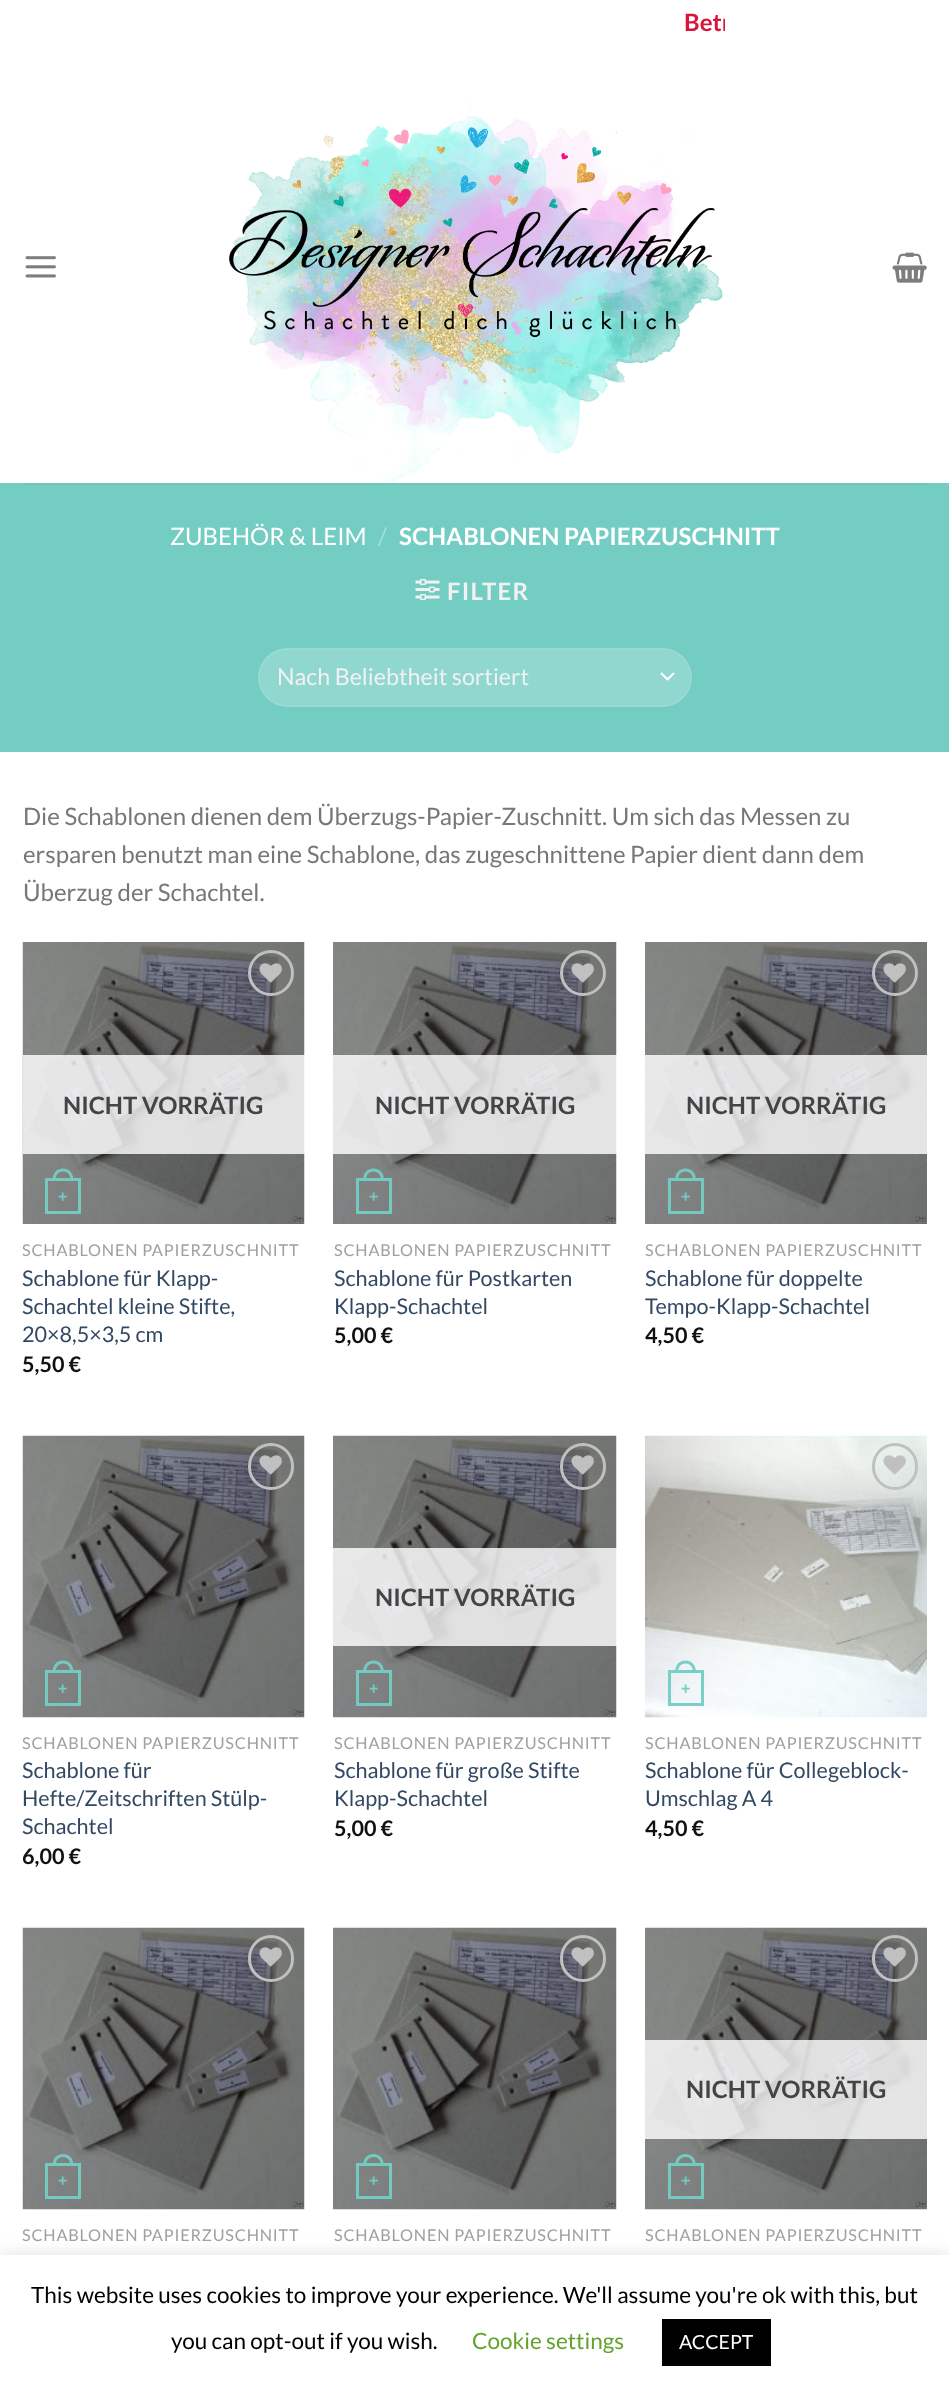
<svg xmlns="http://www.w3.org/2000/svg" width="949" height="2391">
<defs>
<clipPath id="clip1"><rect x="225" y="3" width="500" height="38"/></clipPath>
</defs>
<rect width="100%" height="100%" fill="#fff"/>
<g clip-path="url(#clip1)">
<text x="684" y="31" style="font-family:Lato;font-size:24px;font-weight:bold;fill:#dc143c">Betr</text>
</g>
<image x="25" y="256" width="31" height="22" href="media/1.png"/>
<image x="229" y="102" width="494" height="381" href="media/2.png"/>
<image x="892" y="252" width="35" height="31" href="media/3.png"/>
<rect y="483" width="949" height="269" fill="#73cdc3"/>
<rect x="23" y="483" width="904" height="2" fill="#73c4bb"/>
<text x="170" y="545" style="font-family:Lato;font-size:24px;fill:#fff">ZUBEHÖR &amp; LEIM</text>
<text x="378" y="545" style="font-family:Lato;font-size:24px;fill:#a4dfd8">/</text>
<text x="399" y="545" style="font-family:Lato;font-size:24px;font-weight:bold;fill:#fff">SCHABLONEN PAPIERZUSCHNITT</text>
<image x="415" y="579" width="25" height="21" href="media/4.png"/>
<text x="447" y="600" style="font-family:Lato;font-size:24px;font-weight:bold;letter-spacing:1.25px;fill:#f1f1f1">FILTER</text>
<rect x="258" y="648" width="434" height="59" rx="29.5" fill="#8fd7cf"/>
<path d="M661.5 673.5l6 6l6-6" fill="none" stroke="#fff" stroke-width="2" stroke-linecap="round" stroke-linejoin="round"/>
<rect x="259" y="649" width="432" height="57" rx="28.5" fill="none" stroke="#ffffff17" stroke-width="2"/>
<text x="277" y="685" style="font-family:Lato;font-size:23.25px;fill:#f1f1f1">Nach Beliebtheit sortiert</text>
<text x="23" y="825" style="font-family:Lato;font-size:24px;fill:#777">Die Schablonen dienen dem Überzugs-Papier-Zuschnitt. Um sich das Messen zu</text>
<text x="23" y="863" style="font-family:Lato;font-size:24px;fill:#777">ersparen benutzt man eine Schablone, das zugeschnittene Papier dient dann dem</text>
<text x="23" y="901" style="font-family:Lato;font-size:24px;fill:#777">Überzug der Schachtel.</text>
<image x="22" y="942" width="283" height="282" href="media/5.png"/>
<circle cx="271" cy="973" r="21.5" fill="none" stroke="#c0c0c0" stroke-width="3"/>
<image x="259" y="963" width="23" height="20" href="media/6.png"/>
<rect x="23" y="1055" width="282" height="99" fill="#ffffffcf"/>
<text x="63" y="1114" style="font-family:Lato;font-size:24px;font-weight:bold;fill:#444">NICHT VORRÄTIG</text>
<rect x="46.5" y="1179.5" width="33" height="33" fill="none" stroke="#73cdc3f2" stroke-width="3"/>
<path d="M63 1168.5c7 0 10.5 5.5 10.5 12h-21c0-6.5 3.5-12 10.5-12zm0 3c5.5 0 7.5 4.5 7.5 9h-15c0-4.5 2-9 7.5-9z" fill="#74c9c0" fill-rule="evenodd"/>
<text x="58" y="1202" style="font-family:Liberation Sans;font-size:16px;font-weight:bold;fill:#74c9c0">+</text>
<text x="22" y="1256" style="font-family:Lato;font-size:16.25px;letter-spacing:0.8px;fill:#a0a0a0">SCHABLONEN PAPIERZUSCHNITT</text>
<text x="22" y="1286" style="font-family:Lato;font-size:21.6px;fill:#334862">Schablone für Klapp-</text>
<text x="22" y="1314" style="font-family:Lato;font-size:21.6px;fill:#334862">Schachtel kleine Stifte,</text>
<text x="22" y="1342" style="font-family:Lato;font-size:21.6px;fill:#334862">20×8,5×3,5 cm</text>
<text x="22" y="1372" style="font-family:Lato;font-size:21.6px;font-weight:bold;fill:#111">5,50 €</text>
<image x="333" y="942" width="284" height="282" href="media/7.png"/>
<circle cx="583" cy="973" r="21.5" fill="none" stroke="#c0c0c0" stroke-width="3"/>
<image x="571" y="963" width="23" height="20" href="media/8.png"/>
<rect x="333" y="1055" width="284" height="99" fill="#ffffffcf"/>
<text x="375" y="1114" style="font-family:Lato;font-size:24px;font-weight:bold;fill:#444">NICHT VORRÄTIG</text>
<rect x="357.5" y="1179.5" width="33" height="33" fill="none" stroke="#73cdc3f2" stroke-width="3"/>
<path d="M373.5 1168.5c7 0 10.5 5.5 10.5 12h-21c0-6.5 3.5-12 10.5-12zm0 3c5.5 0 7.5 4.5 7.5 9h-15c0-4.5 2-9 7.5-9z" fill="#74c9c0" fill-rule="evenodd"/>
<text x="369" y="1202" style="font-family:Liberation Sans;font-size:16px;font-weight:bold;fill:#74c9c0">+</text>
<text x="334" y="1256" style="font-family:Lato;font-size:16.25px;letter-spacing:0.8px;fill:#a0a0a0">SCHABLONEN PAPIERZUSCHNITT</text>
<text x="334" y="1286" style="font-family:Lato;font-size:21.6px;fill:#334862">Schablone für Postkarten</text>
<text x="334" y="1314" style="font-family:Lato;font-size:21.6px;fill:#334862">Klapp-Schachtel</text>
<text x="334" y="1343" style="font-family:Lato;font-size:21.6px;font-weight:bold;fill:#111">5,00 €</text>
<image x="645" y="942" width="282" height="282" href="media/9.png"/>
<circle cx="895" cy="973" r="21.5" fill="none" stroke="#c0c0c0" stroke-width="3"/>
<image x="883" y="963" width="23" height="20" href="media/10.png"/>
<rect x="645" y="1055" width="282" height="99" fill="#ffffffcf"/>
<text x="686" y="1114" style="font-family:Lato;font-size:24px;font-weight:bold;fill:#444">NICHT VORRÄTIG</text>
<rect x="669.5" y="1179.5" width="33" height="33" fill="none" stroke="#73cdc3f2" stroke-width="3"/>
<path d="M685.5 1168.5c7 0 10.5 5.5 10.5 12h-21c0-6.5 3.5-12 10.5-12zm0 3c5.5 0 7.5 4.5 7.5 9h-15c0-4.5 2-9 7.5-9z" fill="#74c9c0" fill-rule="evenodd"/>
<text x="681" y="1202" style="font-family:Liberation Sans;font-size:16px;font-weight:bold;fill:#74c9c0">+</text>
<text x="645" y="1256" style="font-family:Lato;font-size:16.25px;letter-spacing:0.8px;fill:#a0a0a0">SCHABLONEN PAPIERZUSCHNITT</text>
<text x="645" y="1286" style="font-family:Lato;font-size:21.6px;fill:#334862">Schablone für doppelte</text>
<text x="645" y="1314" style="font-family:Lato;font-size:21.6px;fill:#334862">Tempo-Klapp-Schachtel</text>
<text x="645" y="1343" style="font-family:Lato;font-size:21.6px;font-weight:bold;fill:#111">4,50 €</text>
<image x="22" y="1435" width="283" height="283" href="media/11.png"/>
<rect x="249.5" y="1444.5" width="43" height="44" rx="21.5" fill="none" stroke="#c0c0c0" stroke-width="3"/>
<image x="259" y="1455" width="23" height="20" href="media/12.png"/>
<rect x="46.5" y="1671.5" width="33" height="33" fill="none" stroke="#73cdc3f2" stroke-width="3"/>
<path d="M63 1660.5c7 0 10.5 5.5 10.5 12h-21c0-6.5 3.5-12 10.5-12zm0 3c5.5 0 7.5 4.5 7.5 9h-15c0-4.5 2-9 7.5-9z" fill="#74c9c0" fill-rule="evenodd"/>
<text x="58" y="1694" style="font-family:Liberation Sans;font-size:16px;font-weight:bold;fill:#74c9c0">+</text>
<text x="22" y="1749" style="font-family:Lato;font-size:16.25px;letter-spacing:0.8px;fill:#a0a0a0">SCHABLONEN PAPIERZUSCHNITT</text>
<text x="22" y="1778" style="font-family:Lato;font-size:21.6px;fill:#334862">Schablone für</text>
<text x="22" y="1806" style="font-family:Lato;font-size:21.6px;fill:#334862">Hefte/Zeitschriften Stülp-</text>
<text x="22" y="1834" style="font-family:Lato;font-size:21.6px;fill:#334862">Schachtel</text>
<text x="22" y="1864" style="font-family:Lato;font-size:21.6px;font-weight:bold;fill:#111">6,00 €</text>
<image x="333" y="1435" width="284" height="283" href="media/13.png"/>
<rect x="561.5" y="1444.5" width="43" height="44" rx="21.5" fill="none" stroke="#c0c0c0" stroke-width="3"/>
<image x="571" y="1455" width="23" height="20" href="media/14.png"/>
<rect x="333" y="1548" width="284" height="98" fill="#ffffffcf"/>
<text x="375" y="1606" style="font-family:Lato;font-size:24px;font-weight:bold;fill:#444">NICHT VORRÄTIG</text>
<rect x="357.5" y="1671.5" width="33" height="33" fill="none" stroke="#73cdc3f2" stroke-width="3"/>
<path d="M373.5 1660.5c7 0 10.5 5.5 10.5 12h-21c0-6.5 3.5-12 10.5-12zm0 3c5.5 0 7.5 4.5 7.5 9h-15c0-4.5 2-9 7.5-9z" fill="#74c9c0" fill-rule="evenodd"/>
<text x="369" y="1694" style="font-family:Liberation Sans;font-size:16px;font-weight:bold;fill:#74c9c0">+</text>
<text x="334" y="1749" style="font-family:Lato;font-size:16.25px;letter-spacing:0.8px;fill:#a0a0a0">SCHABLONEN PAPIERZUSCHNITT</text>
<text x="334" y="1778" style="font-family:Lato;font-size:21.6px;fill:#334862">Schablone für große Stifte</text>
<text x="334" y="1806" style="font-family:Lato;font-size:21.6px;fill:#334862">Klapp-Schachtel</text>
<text x="334" y="1836" style="font-family:Lato;font-size:21.6px;font-weight:bold;fill:#111">5,00 €</text>
<image x="645" y="1435" width="282" height="283" href="media/15.png"/>
<rect x="873.5" y="1444.5" width="43" height="44" rx="21.5" fill="none" stroke="#c0c0c0" stroke-width="3"/>
<image x="883" y="1455" width="23" height="20" href="media/16.png"/>
<rect x="669.5" y="1671.5" width="33" height="33" fill="none" stroke="#73cdc3f2" stroke-width="3"/>
<path d="M685.5 1660.5c7 0 10.5 5.5 10.5 12h-21c0-6.5 3.5-12 10.5-12zm0 3c5.5 0 7.5 4.5 7.5 9h-15c0-4.5 2-9 7.5-9z" fill="#73cdc3f2" fill-rule="evenodd"/>
<text x="681" y="1694" style="font-family:Liberation Sans;font-size:16px;font-weight:bold;fill:#79cfc6">+</text>
<text x="645" y="1749" style="font-family:Lato;font-size:16.25px;letter-spacing:0.8px;fill:#a0a0a0">SCHABLONEN PAPIERZUSCHNITT</text>
<text x="645" y="1778" style="font-family:Lato;font-size:21.6px;fill:#334862">Schablone für Collegeblock-</text>
<text x="645" y="1806" style="font-family:Lato;font-size:21.6px;fill:#334862">Umschlag A 4</text>
<text x="645" y="1836" style="font-family:Lato;font-size:21.6px;font-weight:bold;fill:#111">4,50 €</text>
<image x="22" y="1927" width="283" height="283" href="media/11.png"/>
<rect x="249.5" y="1936.5" width="43" height="44" rx="21.5" fill="none" stroke="#c0c0c0" stroke-width="3"/>
<image x="259" y="1947" width="23" height="20" href="media/12.png"/>
<rect x="46.5" y="2164.5" width="33" height="33" fill="none" stroke="#73cdc3f2" stroke-width="3"/>
<path d="M63 2154c7 0 10.5 5.5 10.5 12h-21c0-6.5 3.5-12 10.5-12zm0 3c5.5 0 7.5 4.5 7.5 9h-15c0-4.5 2-9 7.5-9z" fill="#74c9c0" fill-rule="evenodd"/>
<text x="58" y="2186" style="font-family:Liberation Sans;font-size:16px;font-weight:bold;fill:#74c9c0">+</text>
<text x="22" y="2241" style="font-family:Lato;font-size:16.25px;letter-spacing:0.8px;fill:#a0a0a0">SCHABLONEN PAPIERZUSCHNITT</text>
<image x="333" y="1927" width="284" height="283" href="media/13.png"/>
<rect x="561.5" y="1936.5" width="43" height="44" rx="21.5" fill="none" stroke="#c0c0c0" stroke-width="3"/>
<image x="571" y="1947" width="23" height="20" href="media/14.png"/>
<rect x="357.5" y="2164.5" width="33" height="33" fill="none" stroke="#73cdc3f2" stroke-width="3"/>
<path d="M373.5 2154c7 0 10.5 5.5 10.5 12h-21c0-6.5 3.5-12 10.5-12zm0 3c5.5 0 7.5 4.5 7.5 9h-15c0-4.5 2-9 7.5-9z" fill="#74c9c0" fill-rule="evenodd"/>
<text x="369" y="2186" style="font-family:Liberation Sans;font-size:16px;font-weight:bold;fill:#74c9c0">+</text>
<text x="334" y="2241" style="font-family:Lato;font-size:16.25px;letter-spacing:0.8px;fill:#a0a0a0">SCHABLONEN PAPIERZUSCHNITT</text>
<image x="645" y="1927" width="282" height="283" href="media/17.png"/>
<rect x="873.5" y="1936.5" width="43" height="44" rx="21.5" fill="none" stroke="#c0c0c0" stroke-width="3"/>
<image x="883" y="1947" width="23" height="20" href="media/18.png"/>
<rect x="645" y="2040" width="282" height="99" fill="#ffffffcf"/>
<text x="686" y="2098" style="font-family:Lato;font-size:24px;font-weight:bold;fill:#444">NICHT VORRÄTIG</text>
<rect x="669.5" y="2164.5" width="33" height="33" fill="none" stroke="#73cdc3f2" stroke-width="3"/>
<path d="M685.5 2154c7 0 10.5 5.5 10.5 12h-21c0-6.5 3.5-12 10.5-12zm0 3c5.5 0 7.5 4.5 7.5 9h-15c0-4.5 2-9 7.5-9z" fill="#74c9c0" fill-rule="evenodd"/>
<text x="681" y="2186" style="font-family:Liberation Sans;font-size:16px;font-weight:bold;fill:#74c9c0">+</text>
<text x="645" y="2241" style="font-family:Lato;font-size:16.25px;letter-spacing:0.8px;fill:#a0a0a0">SCHABLONEN PAPIERZUSCHNITT</text>
<rect y="2253" width="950" height="137" fill="#acabab4d" filter="blur(7.5px)"/>
<rect y="2255" width="949" height="136" fill="#fff"/>
<text x="31" y="2303" style="font-family:Lato;font-size:22.5px;fill:#000">This website uses cookies to improve your experience. We'll assume you're ok with this, but</text>
<text x="171" y="2349" style="font-family:Lato;font-size:22.5px;fill:#000">you can opt-out if you wish.</text>
<text x="472" y="2349" style="font-family:Lato;font-size:22.5px;fill:#62a329">Cookie settings</text>
<rect x="662" y="2319" width="109" height="47" fill="#000"/>
<text x="679" y="2349" style="font-family:Lato;font-size:19.5px;fill:#fff">ACCEPT</text>
</svg>
